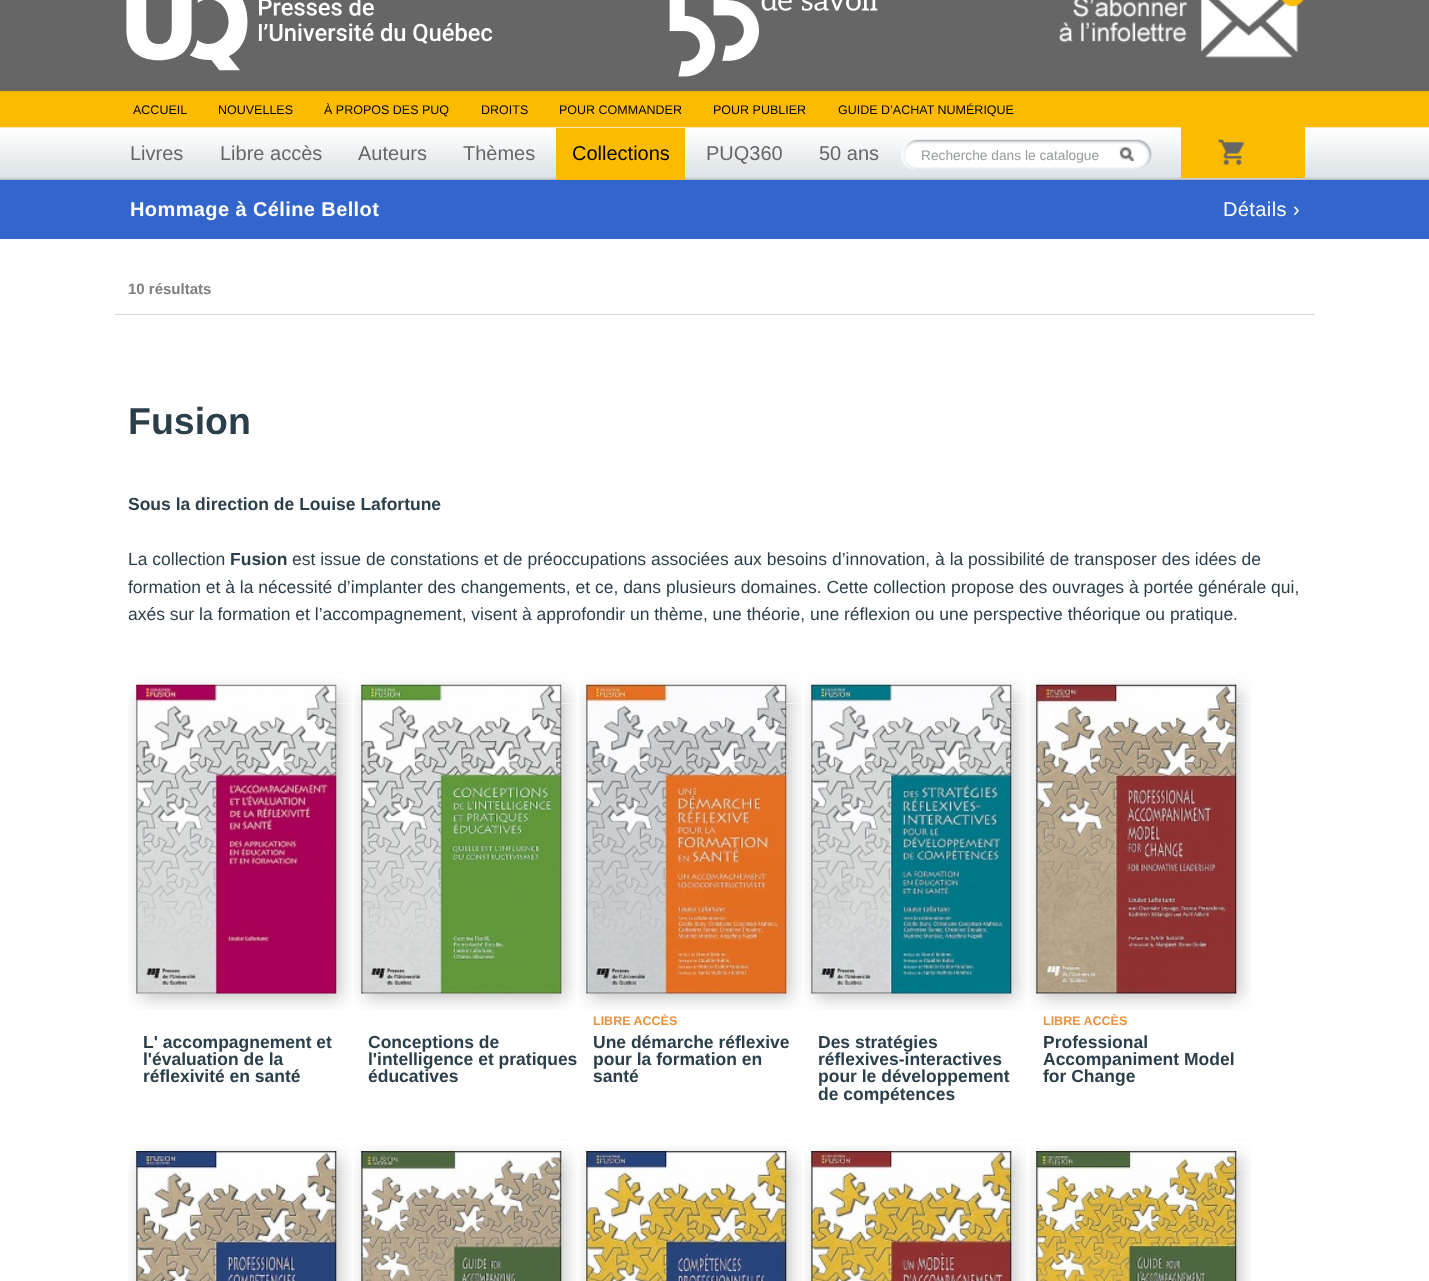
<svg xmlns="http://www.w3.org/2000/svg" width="1429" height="1281">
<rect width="100%" height="100%" fill="#fff"/>
<rect width="1429" height="180" fill="#666"/>
<image x="0" y="90" width="1429" height="90" href="media/1.png"/>
<image x="126" y="0" width="367" height="71" href="media/2.png"/>
<image x="669" y="0" width="209" height="77" href="media/3.png"/>
<image x="1058" y="0" width="246" height="58" href="media/4.png"/>
<text x="133" y="114" style="font-family:Liberation Sans;font-size:12.5px;fill:#000">ACCUEIL</text>
<text x="218" y="114" style="font-family:Liberation Sans;font-size:12.5px;fill:#000">NOUVELLES</text>
<text x="324" y="114" style="font-family:Liberation Sans;font-size:12.5px;fill:#000">À PROPOS DES PUQ</text>
<text x="481" y="114" style="font-family:Liberation Sans;font-size:12.5px;fill:#000">DROITS</text>
<text x="559" y="114" style="font-family:Liberation Sans;font-size:12.5px;fill:#000">POUR COMMANDER</text>
<text x="713" y="114" style="font-family:Liberation Sans;font-size:12.5px;fill:#000">POUR PUBLIER</text>
<text x="838" y="114" style="font-family:Liberation Sans;font-size:12.5px;fill:#000">GUIDE D’ACHAT NUMÉRIQUE</text>
<text x="130" y="160" style="font-family:Liberation Sans;font-size:20px;fill:#666">Livres</text>
<text x="220" y="160" style="font-family:Liberation Sans;font-size:20px;fill:#666">Libre accès</text>
<text x="358" y="160" style="font-family:Liberation Sans;font-size:20px;fill:#666">Auteurs</text>
<text x="463" y="160" style="font-family:Liberation Sans;font-size:20px;fill:#666">Thèmes</text>
<rect x="556" y="128" width="129" height="52" fill="#fabb00"/>
<text x="572" y="160" style="font-family:Liberation Sans;font-size:20px;fill:#000">Collections</text>
<text x="706" y="160" style="font-family:Liberation Sans;font-size:20px;fill:#666">PUQ360</text>
<text x="819" y="160" style="font-family:Liberation Sans;font-size:20px;fill:#666">50 ans</text>
<image x="901" y="139" width="252" height="31" href="media/5.png"/>
<text x="921" y="160" style="font-family:Liberation Sans;font-size:13.75px;fill:#989c9d">Recherche dans le catalogue</text>
<rect x="1181" y="127" width="124" height="51" fill="#fabb00"/>
<image x="1218" y="139" width="26" height="26" href="media/6.png"/>
<rect y="180" width="1429" height="59" fill="#36c"/>
<text x="130" y="216" style="font-family:Liberation Sans;font-size:20px;font-weight:bold;letter-spacing:0.4px;fill:#fff">Hommage à Céline Bellot</text>
<text x="1223" y="216" style="font-family:Liberation Sans;font-size:20px;letter-spacing:0.4px;fill:#fff">Détails ›</text>
<rect x="115" y="314" width="1200" height="1" fill="#d6d7d8"/>
<text x="128" y="294" style="font-family:Liberation Sans;font-size:15px;font-weight:bold;fill:#7f7f7f">10 résultats</text>
<text x="128" y="434" style="font-family:Liberation Sans;font-size:37.5px;font-weight:bold;fill:#2b3f4a">Fusion</text>
<text x="128" y="510" style="font-family:Liberation Sans;font-size:17.5px;font-weight:bold;fill:#2b3f4a">Sous la direction de Louise Lafortune</text>
<text x="128" y="565" style="font-family:Liberation Sans;font-size:17.5px;fill:#2b3f4a">La collection</text>
<text x="230" y="565" style="font-family:Liberation Sans;font-size:17.5px;font-weight:bold;fill:#2b3f4a">Fusion</text>
<text x="292" y="565" style="font-family:Liberation Sans;font-size:17.5px;fill:#2b3f4a">est issue de constations et de préoccupations associées aux besoins d’innovation, à la possibilité de transposer des idées de</text>
<text x="128" y="593" style="font-family:Liberation Sans;font-size:17.5px;fill:#2b3f4a">formation et à la nécessité d’implanter des changements, et ce, dans plusieurs domaines. Cette collection propose des ouvrages à portée générale qui,</text>
<text x="128" y="620" style="font-family:Liberation Sans;font-size:17.5px;fill:#2b3f4a">axés sur la formation et l’accompagnement, visent à approfondir un thème, une théorie, une réflexion ou une perspective théorique ou pratique.</text>
<image x="128" y="673" width="224" height="337" href="media/7.png"/>
<rect x="128" y="674" width="224" height="30" fill="#fff"/>
<image x="129" y="673" width="223" height="31" href="media/8.png"/>
<image x="136" y="684" width="201" height="310" href="media/9.png"/>
<text x="143" y="1048" style="font-family:Liberation Sans;font-size:17.5px;font-weight:bold;fill:#2b3f4a">L' accompagnement et</text>
<text x="143" y="1065" style="font-family:Liberation Sans;font-size:17.5px;font-weight:bold;fill:#2b3f4a">l'évaluation de la</text>
<text x="143" y="1082" style="font-family:Liberation Sans;font-size:17.5px;font-weight:bold;fill:#2b3f4a">réflexivité en santé</text>
<image x="353" y="673" width="224" height="337" href="media/10.png"/>
<rect x="353" y="674" width="224" height="30" fill="#fff"/>
<image x="354" y="673" width="223" height="31" href="media/11.png"/>
<image x="361" y="684" width="201" height="310" href="media/12.png"/>
<text x="368" y="1048" style="font-family:Liberation Sans;font-size:17.5px;font-weight:bold;fill:#2b3f4a">Conceptions de</text>
<text x="368" y="1065" style="font-family:Liberation Sans;font-size:17.5px;font-weight:bold;fill:#2b3f4a">l'intelligence et pratiques</text>
<text x="368" y="1082" style="font-family:Liberation Sans;font-size:17.5px;font-weight:bold;fill:#2b3f4a">éducatives</text>
<image x="578" y="673" width="224" height="337" href="media/10.png"/>
<rect x="578" y="674" width="224" height="30" fill="#fff"/>
<image x="579" y="673" width="223" height="31" href="media/11.png"/>
<image x="586" y="684" width="201" height="310" href="media/13.png"/>
<text x="593" y="1025" style="font-family:Liberation Sans;font-size:12.5px;font-weight:bold;fill:#ea923d">LIBRE ACCÈS</text>
<text x="593" y="1048" style="font-family:Liberation Sans;font-size:17.5px;font-weight:bold;fill:#2b3f4a">Une démarche réflexive</text>
<text x="593" y="1065" style="font-family:Liberation Sans;font-size:17.5px;font-weight:bold;fill:#2b3f4a">pour la formation en</text>
<text x="593" y="1082" style="font-family:Liberation Sans;font-size:17.5px;font-weight:bold;fill:#2b3f4a">santé</text>
<image x="803" y="673" width="224" height="337" href="media/14.png"/>
<rect x="803" y="674" width="224" height="30" fill="#fff"/>
<image x="804" y="673" width="223" height="31" href="media/15.png"/>
<image x="811" y="684" width="201" height="310" href="media/16.png"/>
<text x="818" y="1048" style="font-family:Liberation Sans;font-size:17.5px;font-weight:bold;fill:#2b3f4a">Des stratégies</text>
<text x="818" y="1065" style="font-family:Liberation Sans;font-size:17.5px;font-weight:bold;fill:#2b3f4a">réflexives-interactives</text>
<text x="818" y="1082" style="font-family:Liberation Sans;font-size:17.5px;font-weight:bold;fill:#2b3f4a">pour le développement</text>
<text x="818" y="1100" style="font-family:Liberation Sans;font-size:17.5px;font-weight:bold;fill:#2b3f4a">de compétences</text>
<image x="1028" y="673" width="224" height="337" href="media/7.png"/>
<rect x="1028" y="674" width="224" height="30" fill="#fff"/>
<image x="1029" y="673" width="223" height="31" href="media/8.png"/>
<image x="1036" y="684" width="201" height="310" href="media/17.png"/>
<text x="1043" y="1025" style="font-family:Liberation Sans;font-size:12.5px;font-weight:bold;fill:#ea923d">LIBRE ACCÈS</text>
<text x="1043" y="1048" style="font-family:Liberation Sans;font-size:17.5px;font-weight:bold;fill:#2b3f4a">Professional</text>
<text x="1043" y="1065" style="font-family:Liberation Sans;font-size:17.5px;font-weight:bold;fill:#2b3f4a">Accompaniment Model</text>
<text x="1043" y="1082" style="font-family:Liberation Sans;font-size:17.5px;font-weight:bold;fill:#2b3f4a">for Change</text>
<image x="128" y="1139" width="224" height="142" href="media/18.png"/>
<rect x="128" y="1140" width="224" height="30" fill="#fff"/>
<image x="129" y="1145" width="223" height="25" href="media/19.png"/>
<image x="136" y="1151" width="201" height="130" href="media/20.png"/>
<image x="353" y="1139" width="224" height="142" href="media/21.png"/>
<rect x="353" y="1140" width="224" height="30" fill="#fff"/>
<image x="354" y="1145" width="223" height="25" href="media/22.png"/>
<image x="361" y="1151" width="201" height="130" href="media/23.png"/>
<image x="578" y="1139" width="224" height="142" href="media/24.png"/>
<rect x="578" y="1140" width="224" height="30" fill="#fff"/>
<image x="579" y="1145" width="223" height="25" href="media/22.png"/>
<image x="586" y="1151" width="201" height="130" href="media/25.png"/>
<image x="803" y="1139" width="224" height="142" href="media/26.png"/>
<rect x="803" y="1140" width="224" height="30" fill="#fff"/>
<image x="804" y="1145" width="223" height="25" href="media/27.png"/>
<image x="811" y="1151" width="201" height="130" href="media/28.png"/>
<image x="1028" y="1139" width="224" height="142" href="media/29.png"/>
<rect x="1028" y="1140" width="224" height="30" fill="#fff"/>
<image x="1029" y="1145" width="223" height="25" href="media/19.png"/>
<image x="1036" y="1151" width="201" height="130" href="media/30.png"/>
</svg>
